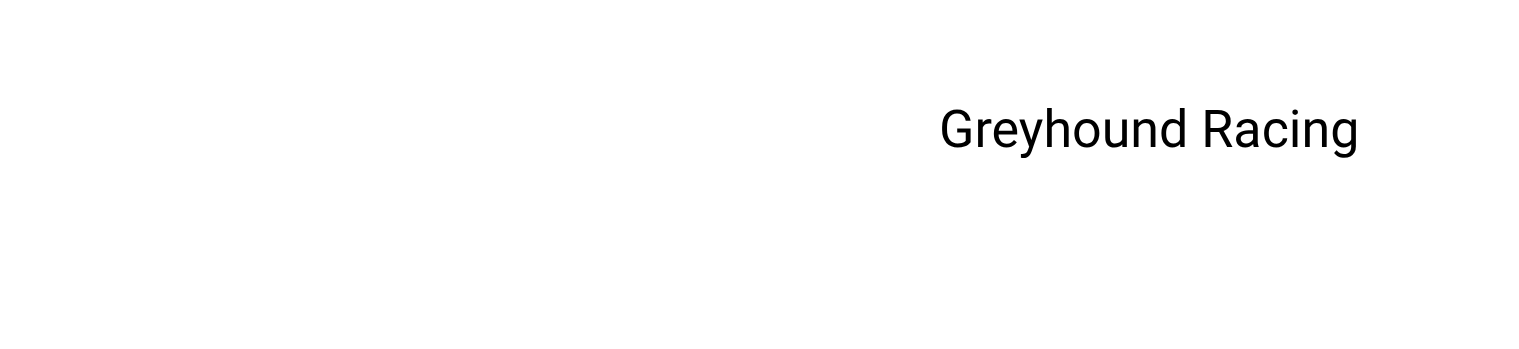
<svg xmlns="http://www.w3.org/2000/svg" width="1519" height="349">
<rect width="100%" height="100%" fill="#fff"/>
<text x="939" y="147" style="font-family:Roboto;font-size:52px;fill:#000">Greyhound Racing</text>
</svg>
